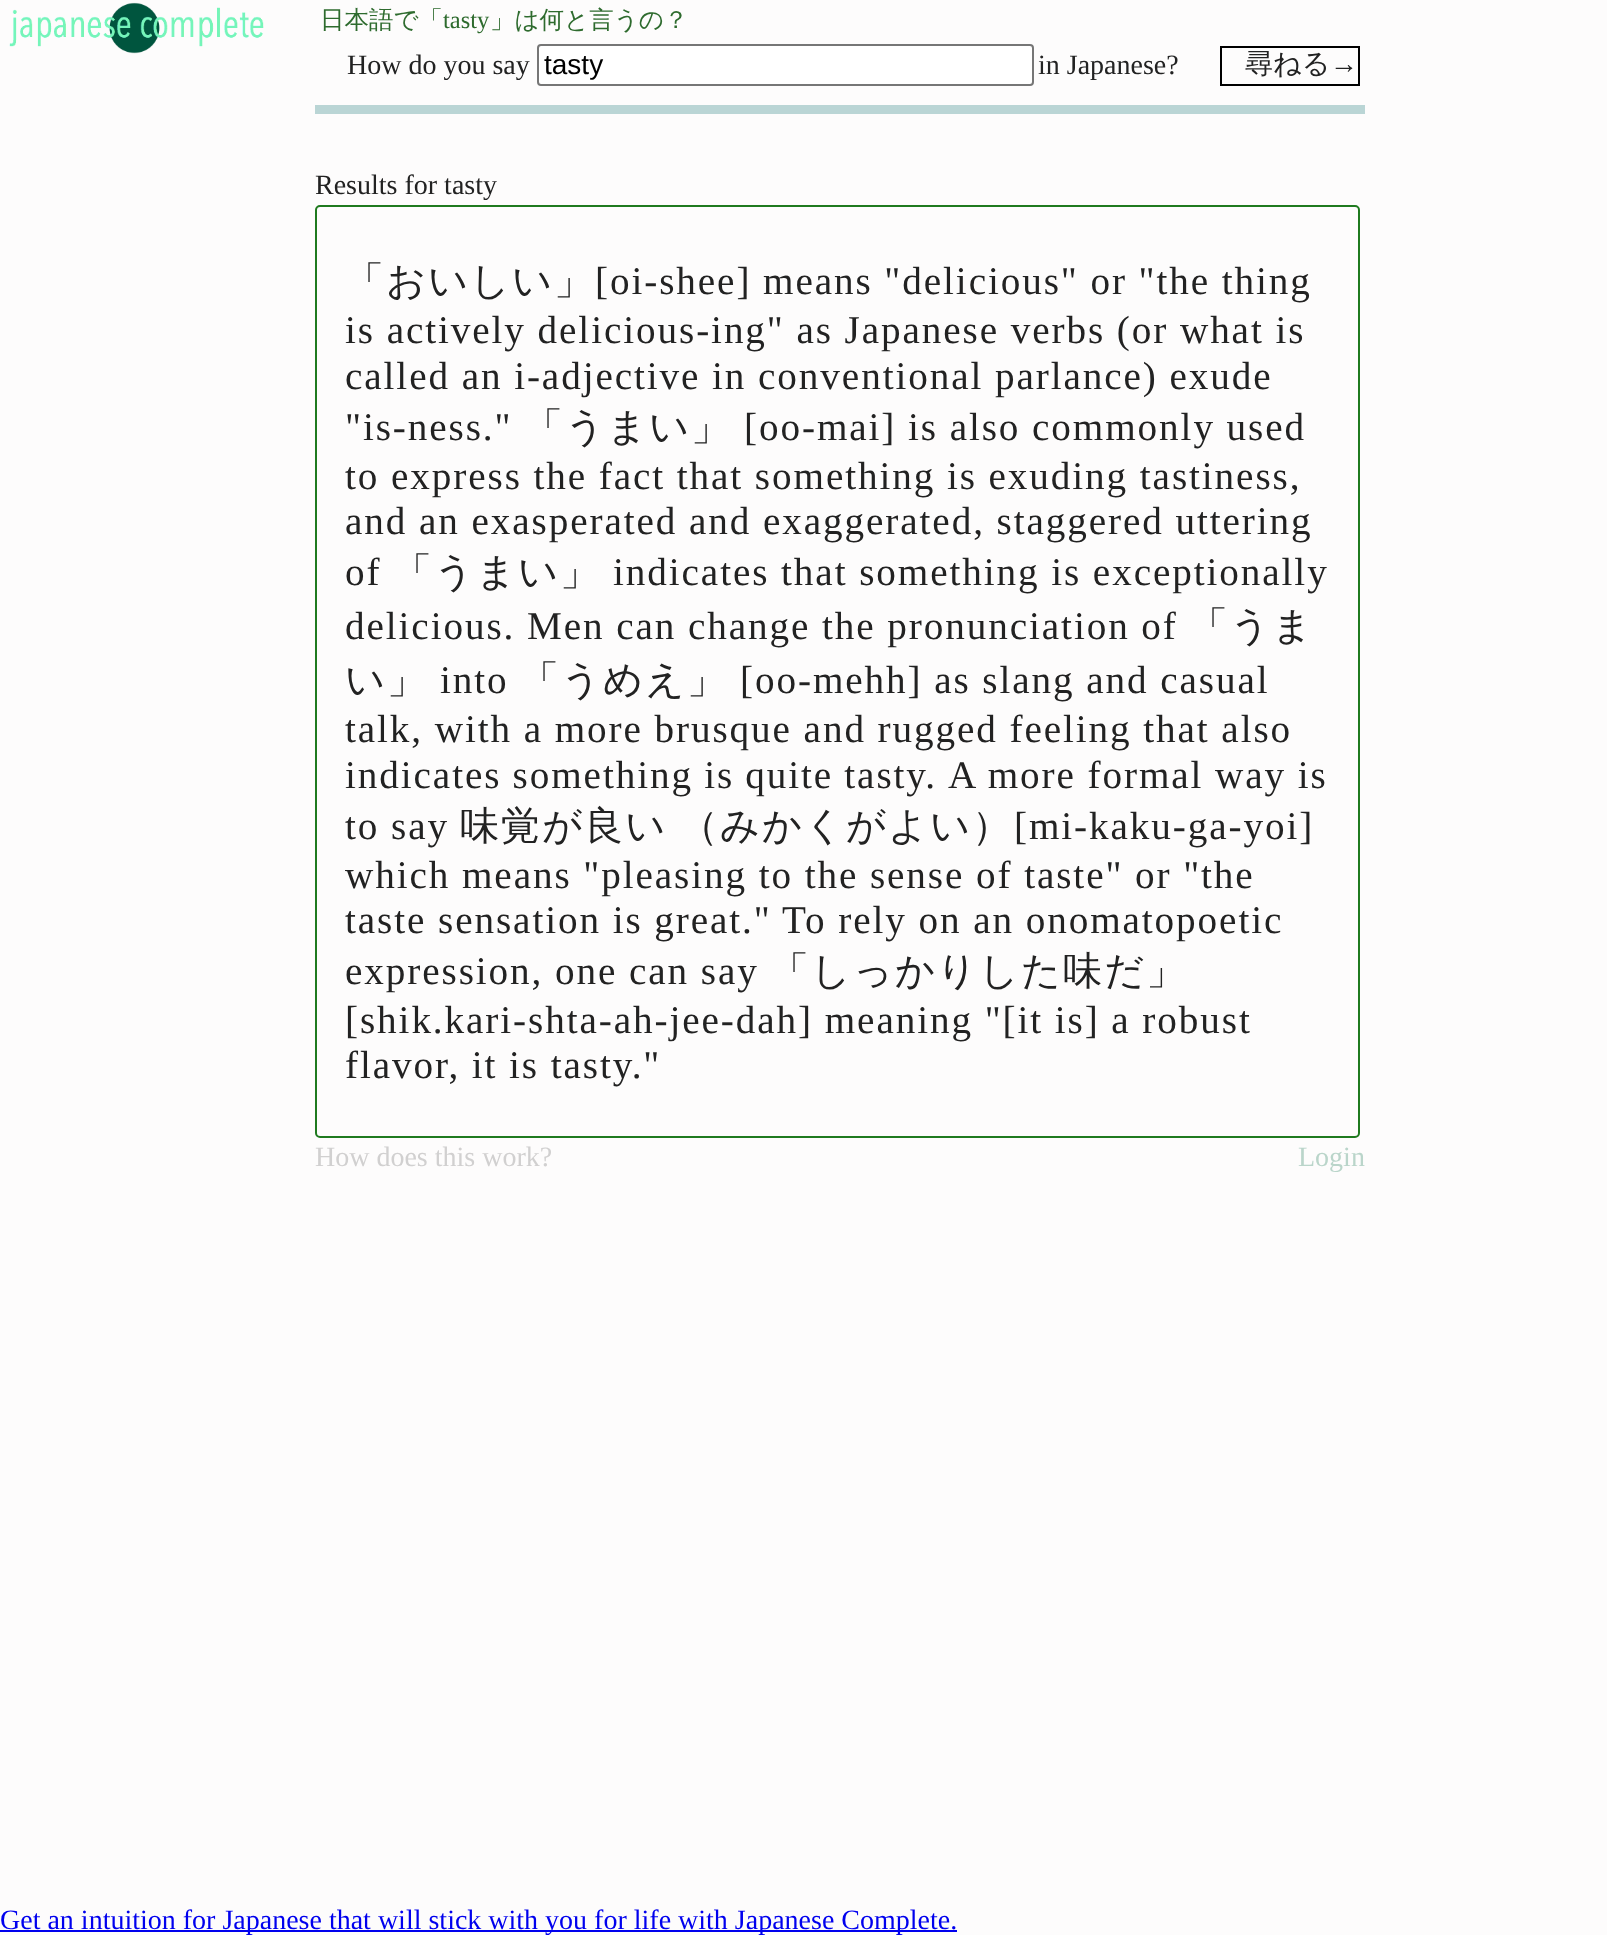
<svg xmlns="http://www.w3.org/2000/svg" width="1607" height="1935">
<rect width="100%" height="100%" fill="#fdfcfc"/>
<image x="9" y="2" width="255" height="52" href="media/1.png"/>
<text x="320" y="28" style="font-family:WenQuanYi Zen Hei;font-size:24.5px;font-weight:500;fill:#2e6b2e">日本語で「</text>
<text x="443" y="28" style="font-family:Liberation Serif;font-size:24.5px;fill:#2e6b2e">tasty</text>
<text x="490" y="28" style="font-family:WenQuanYi Zen Hei;font-size:24.5px;font-weight:500;fill:#2e6b2e">」は何と言うの？</text>
<text x="347" y="74" style="font-family:Liberation Serif;font-size:28px;fill:#222">How do you say</text>
<rect x="538" y="45" width="495" height="40" rx="3" fill="#fff" stroke="#767676" stroke-width="2"/>
<text x="544" y="74" style="font-family:Liberation Sans;font-size:28px;fill:#000">tasty</text>
<text x="1038" y="74" style="font-family:Liberation Serif;font-size:28px;fill:#222">in Japanese?</text>
<rect x="1221" y="47" width="138" height="38" fill="none" stroke="#000" stroke-width="2"/>
<text x="1245" y="73" style="font-family:WenQuanYi Zen Hei;font-size:28px;font-weight:500;fill:#222">尋ねる</text>
<text x="1330" y="73" style="font-family:Liberation Serif;font-size:28px;fill:#222">→</text>
<rect x="315" y="105" width="1050" height="9" fill="#bad5d5"/>
<text x="315" y="194" style="font-family:Liberation Serif;font-size:28px;fill:#222">Results for tasty</text>
<rect x="316" y="206" width="1043" height="931" rx="4" fill="none" stroke="#1f7a1f" stroke-width="2"/>
<text x="345" y="294" style="font-family:WenQuanYi Zen Hei;font-size:39.2px;font-weight:500;letter-spacing:1.9px;fill:#222">「おいしい」</text>
<text x="595" y="294" style="font-family:Liberation Serif;font-size:39.2px;letter-spacing:1.9px;fill:#222">[oi-shee] means "delicious" or "the thing</text>
<text x="345" y="343" style="font-family:Liberation Serif;font-size:39.2px;letter-spacing:1.9px;fill:#222">is actively delicious-ing" as Japanese verbs (or what is</text>
<text x="345" y="389" style="font-family:Liberation Serif;font-size:39.2px;letter-spacing:1.9px;fill:#222">called an i-adjective in conventional parlance) exude</text>
<text x="345" y="440" style="font-family:Liberation Serif;font-size:39.2px;letter-spacing:1.9px;fill:#222">"is-ness."</text>
<text x="524" y="440" style="font-family:WenQuanYi Zen Hei;font-size:39.2px;font-weight:500;letter-spacing:1.9px;fill:#222">「うまい」</text>
<text x="744" y="440" style="font-family:Liberation Serif;font-size:39.2px;letter-spacing:1.9px;fill:#222">[oo-mai] is also commonly used</text>
<text x="345" y="489" style="font-family:Liberation Serif;font-size:39.2px;letter-spacing:1.9px;fill:#222">to express the fact that something is exuding tastiness,</text>
<text x="345" y="534" style="font-family:Liberation Serif;font-size:39.2px;letter-spacing:1.9px;fill:#222">and an exasperated and exaggerated, staggered uttering</text>
<text x="345" y="585" style="font-family:Liberation Serif;font-size:39.2px;letter-spacing:1.9px;fill:#222">of</text>
<text x="393" y="585" style="font-family:WenQuanYi Zen Hei;font-size:39.2px;font-weight:500;letter-spacing:1.9px;fill:#222">「うまい」</text>
<text x="613" y="585" style="font-family:Liberation Serif;font-size:39.2px;letter-spacing:1.9px;fill:#222">indicates that something is exceptionally</text>
<text x="345" y="639" style="font-family:Liberation Serif;font-size:39.2px;letter-spacing:1.9px;fill:#222">delicious. Men can change the pronunciation of</text>
<text x="1189" y="639" style="font-family:WenQuanYi Zen Hei;font-size:39.2px;font-weight:500;letter-spacing:1.9px;fill:#222">「うま</text>
<text x="345" y="693" style="font-family:WenQuanYi Zen Hei;font-size:39.2px;font-weight:500;letter-spacing:1.9px;fill:#222">い」</text>
<text x="440" y="693" style="font-family:Liberation Serif;font-size:39.2px;letter-spacing:1.9px;fill:#222">into</text>
<text x="520" y="693" style="font-family:WenQuanYi Zen Hei;font-size:39.2px;font-weight:500;letter-spacing:1.9px;fill:#222">「うめえ」</text>
<text x="740" y="693" style="font-family:Liberation Serif;font-size:39.2px;letter-spacing:1.9px;fill:#222">[oo-mehh] as slang and casual</text>
<text x="345" y="742" style="font-family:Liberation Serif;font-size:39.2px;letter-spacing:1.9px;fill:#222">talk, with a more brusque and rugged feeling that also</text>
<text x="345" y="788" word-spacing="-0.5" style="font-family:Liberation Serif;font-size:39.2px;letter-spacing:1.9px;fill:#222">indicates something is quite tasty.</text>
<text x="948" y="788" style="font-family:Liberation Serif;font-size:39.2px;letter-spacing:1.9px;fill:#222">A more formal way is</text>
<text x="345" y="839" style="font-family:Liberation Serif;font-size:39.2px;letter-spacing:1.9px;fill:#222">to say</text>
<text x="460" y="839" style="font-family:WenQuanYi Zen Hei;font-size:39.2px;font-weight:500;letter-spacing:1.9px;fill:#222">味覚が良い</text>
<text x="679" y="839" style="font-family:WenQuanYi Zen Hei;font-size:39.2px;font-weight:500;letter-spacing:1.9px;fill:#222">（みかくがよい）</text>
<text x="1014" y="839" style="font-family:Liberation Serif;font-size:39.2px;letter-spacing:1.9px;fill:#222">[mi-kaku-ga-yoi]</text>
<text x="345" y="888" style="font-family:Liberation Serif;font-size:39.2px;letter-spacing:1.9px;fill:#222">which means "pleasing to the sense of taste" or "the</text>
<text x="345" y="933" style="font-family:Liberation Serif;font-size:39.2px;letter-spacing:1.9px;fill:#222">taste sensation is great."</text>
<text x="782" y="933" style="font-family:Liberation Serif;font-size:39.2px;letter-spacing:1.9px;fill:#222">To rely on an onomatopoetic</text>
<text x="345" y="984" style="font-family:Liberation Serif;font-size:39.2px;letter-spacing:1.9px;fill:#222">expression, one can say</text>
<text x="770" y="984" style="font-family:WenQuanYi Zen Hei;font-size:39.2px;font-weight:500;letter-spacing:1.9px;fill:#222">「しっかりした味だ」</text>
<text x="345" y="1033" style="font-family:Liberation Serif;font-size:39.2px;letter-spacing:1.9px;fill:#222">[shik.kari-shta-ah-jee-dah] meaning "[it is] a robust</text>
<text x="345" y="1078" style="font-family:Liberation Serif;font-size:39.2px;letter-spacing:1.9px;fill:#222">flavor, it is tasty."</text>
<text x="315" y="1166" style="font-family:Liberation Serif;font-size:28px;fill:#d1d0d0">How does this work?</text>
<text x="1298" y="1166" style="font-family:Liberation Serif;font-size:28px;fill:#bad5ca">Login</text>
<rect y="1930" width="957" height="2" fill="#00e"/>
<text x="0" y="1929" style="font-family:Liberation Serif;font-size:28px;fill:#00e">Get an intuition for Japanese that will stick with you for life with Japanese Complete.</text>
</svg>
